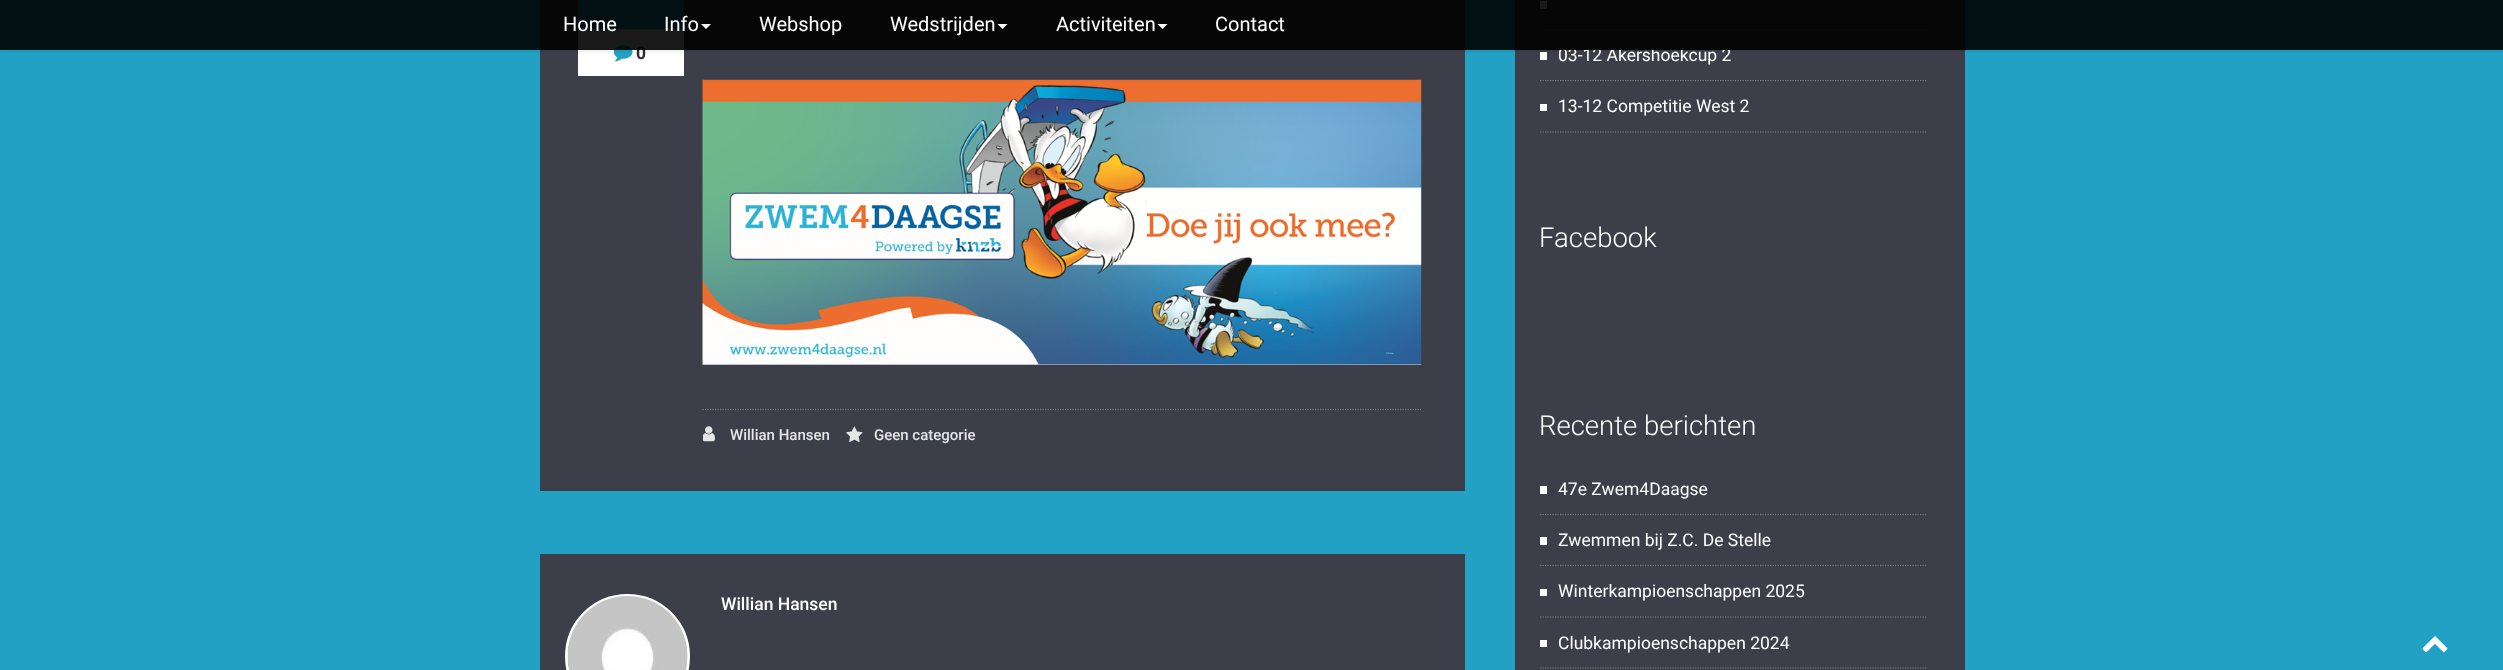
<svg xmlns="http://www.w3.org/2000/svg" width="2503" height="670">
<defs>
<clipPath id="clip1"><rect x="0" y="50" width="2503" height="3"/></clipPath>
</defs>
<rect width="100%" height="100%" fill="#22a1c4"/>
<rect x="540" width="925" height="491" fill="#3c3f49"/>
<rect x="578" y="29" width="106" height="47" fill="#fff"/>
<rect x="578" width="106" height="29" fill="#22a1c4"/>
<image x="613" y="45" width="20" height="17" href="media/1.png"/>
<rect x="1515" width="450" height="670" fill="#3c3f49"/>
<path d="M1540 29.5h387.5" fill="none" stroke="#7b7f8c" stroke-width="1.2" stroke-dasharray="1.25 1.25"/>
<rect x="1540" y="1" width="7" height="8" fill="#fff"/>
<rect x="1540" y="52" width="7" height="8" fill="#fff"/>
<g clip-path="url(#clip1)">
<rect y="1" width="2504" height="50" fill="#0000001a" filter="blur(2px)"/>
</g>
<text x="636" y="59" style="font-family:Roboto;font-size:17.5px;font-weight:bold;fill:#2a2c33">0</text>
<text x="1558" y="61" style="font-family:Roboto;font-size:17.5px;fill:#fff">03-12 Akershoekcup 2</text>
<rect width="2503" height="50" fill="#000000e6"/>
<text x="563" y="31" style="font-family:Roboto;font-size:20px;fill:#fff">Home</text>
<text x="664" y="31" style="font-family:Roboto;font-size:20px;fill:#fff">Info</text>
<path d="M701 24h10l-5 5z" fill="#fff"/>
<text x="759" y="31" style="font-family:Roboto;font-size:20px;fill:#fff">Webshop</text>
<text x="890" y="31" style="font-family:Roboto;font-size:20px;fill:#fff">Wedstrijden</text>
<path d="M997.5 24h10l-5 5z" fill="#fff"/>
<text x="1056" y="31" style="font-family:Roboto;font-size:20px;fill:#fff">Activiteiten</text>
<path d="M1157.5 24h10l-5 5z" fill="#fff"/>
<text x="1215" y="31" style="font-family:Roboto;font-size:20px;fill:#fff">Contact</text>
<image x="702" y="79" width="720" height="286" href="media/2.png"/>
<path d="M702.5 409.5h718.5" fill="none" stroke="#7b7f8c" stroke-width="1.2" stroke-dasharray="1.25 1.25"/>
<image x="703" y="426" width="12" height="16" href="media/3.png"/>
<text x="730" y="440" style="font-family:Roboto;font-size:15px;font-weight:500;fill:#e5e5e5">Willian Hansen</text>
<image x="846" y="426" width="17" height="16" href="media/4.png"/>
<text x="874" y="440" style="font-family:Roboto;font-size:15px;font-weight:500;fill:#e5e5e5">Geen categorie</text>
<rect x="540" y="554" width="925" height="116" fill="#3c3f49"/>
<circle cx="627.5" cy="656.5" r="61" fill="none" stroke="#fff" stroke-width="3"/>
<image x="567" y="596" width="121" height="74" href="media/5.png"/>
<text x="721" y="610" style="font-family:Roboto;font-size:17.5px;font-weight:500;fill:#fff">Willian Hansen</text>
<path d="M1540 80.5h387.5" fill="none" stroke="#7b7f8c" stroke-width="1.2" stroke-dasharray="1.25 1.25"/>
<path d="M1540 132h387.5" fill="none" stroke="#7b7f8c" stroke-width="1.2" stroke-dasharray="1.25 1.25"/>
<text x="1558" y="112" style="font-family:Roboto;font-size:17.5px;fill:#fff">13-12 Competitie West 2</text>
<rect x="1540" y="104" width="7" height="7" fill="#fff"/>
<text x="1539" y="247" style="font-family:Roboto;font-size:27.5px;font-weight:300;fill:#fff">Facebook</text>
<text x="1539" y="435" style="font-family:Roboto;font-size:27.5px;font-weight:300;fill:#fff">Recente berichten</text>
<path d="M1540 514.5h387.5" fill="none" stroke="#7b7f8c" stroke-width="1.2" stroke-dasharray="1.25 1.25"/>
<text x="1558" y="495" style="font-family:Roboto;font-size:17.5px;fill:#fff">47e Zwem4Daagse</text>
<rect x="1540" y="486" width="7" height="8" fill="#fff"/>
<path d="M1540 565.5h387.5" fill="none" stroke="#7b7f8c" stroke-width="1.2" stroke-dasharray="1.25 1.25"/>
<text x="1558" y="546" style="font-family:Roboto;font-size:17.5px;fill:#fff">Zwemmen bij Z.C. De Stelle</text>
<rect x="1540" y="537" width="7" height="8" fill="#fff"/>
<path d="M1540 617h387.5" fill="none" stroke="#7b7f8c" stroke-width="1.2" stroke-dasharray="1.25 1.25"/>
<text x="1558" y="597" style="font-family:Roboto;font-size:17.5px;fill:#fff">Winterkampioenschappen 2025</text>
<rect x="1540" y="589" width="7" height="7" fill="#fff"/>
<path d="M1540 668h387.5" fill="none" stroke="#7b7f8c" stroke-width="1.2" stroke-dasharray="1.25 1.25"/>
<text x="1558" y="649" style="font-family:Roboto;font-size:17.5px;fill:#fff">Clubkampioenschappen 2024</text>
<rect x="1540" y="640" width="7" height="7" fill="#fff"/>
<image x="2422" y="636" width="26" height="17" href="media/6.png"/>
</svg>
